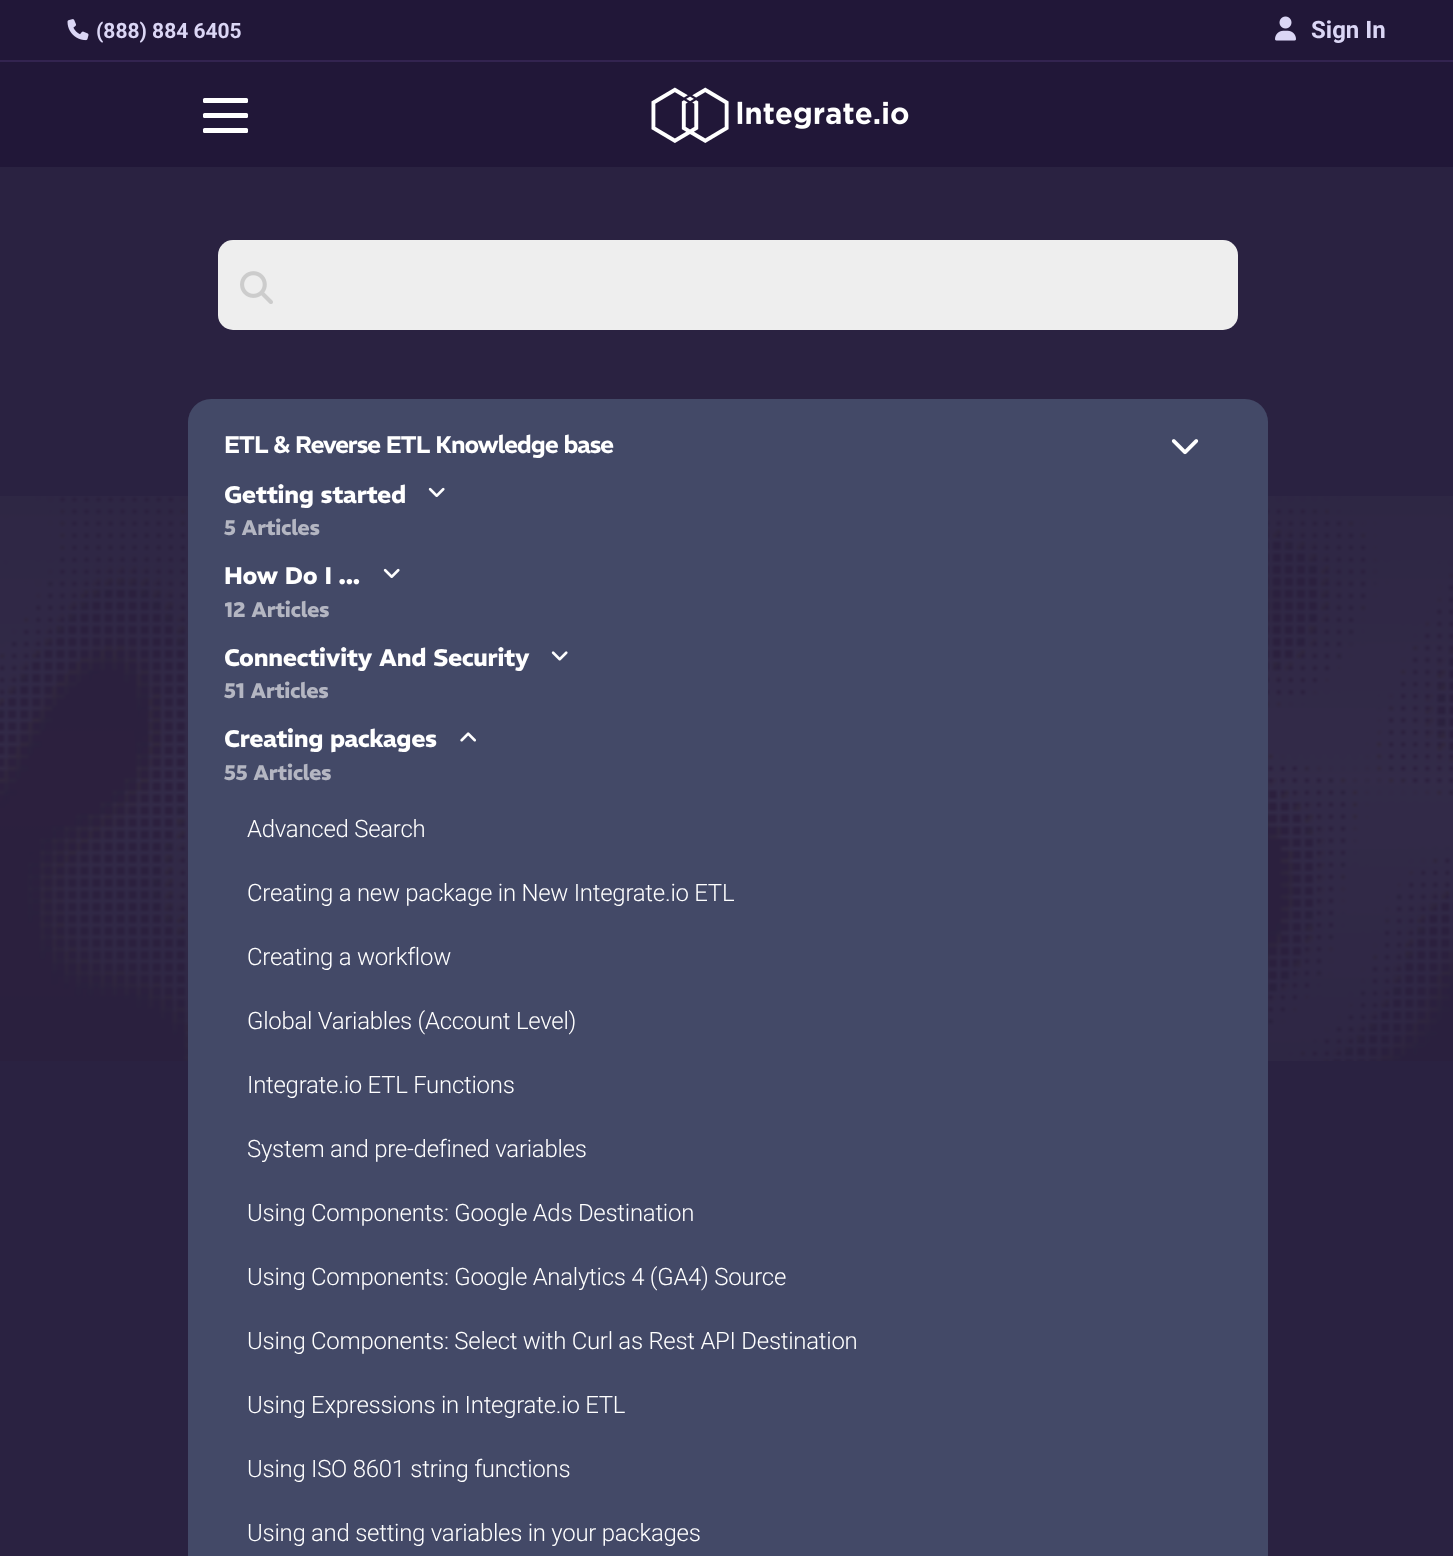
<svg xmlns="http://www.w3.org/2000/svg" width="1453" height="1556">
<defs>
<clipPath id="clip1"><rect x="225" y="461" width="975" height="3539"/></clipPath>
</defs>
<rect width="100%" height="100%" fill="#2a2241"/>
<image x="0" y="496" width="1453" height="565" href="media/1.png"/>
<rect width="1453" height="167" fill="#211738"/>
<rect y="60" width="1453" height="2" fill="#332450"/>
<image x="67" y="19" width="22" height="22" href="media/2.png"/>
<text x="96" y="38" style="font-family:Roboto;font-size:21px;font-weight:bold;fill:#dbd6f5">(888) 884 6405</text>
<image x="1275" y="16" width="21" height="25" href="media/3.png"/>
<text x="1311" y="38" style="font-family:Roboto;font-size:24px;font-weight:bold;fill:#dbd6f5">Sign In</text>
<rect x="203" y="113" width="45" height="5" rx="1.5" fill="#fff"/>
<rect x="203" y="98" width="45" height="5" rx="1.5" fill="#fff"/>
<rect x="203" y="128" width="45" height="5" rx="1.5" fill="#fff"/>
<image x="651" y="87" width="258" height="56" href="media/4.png"/>
<rect x="218" y="240" width="1020" height="90" rx="15" fill="#eee"/>
<image x="240" y="271" width="33" height="33" href="media/5.png"/>
<rect x="188" y="399" width="1080" height="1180" rx="23" fill="#434967"/>
<text x="224" y="453" style="font-family:REM;font-size:24px;font-weight:600;letter-spacing:-1px;fill:#fff">ETL &amp; Reverse ETL Knowledge base</text>
<image x="1171" y="439" width="28" height="16" href="media/6.png"/>
<text x="224" y="503" style="font-family:REM;font-size:24px;font-weight:bold;letter-spacing:-0.25px;fill:#fff">Getting started</text>
<image x="428" y="487" width="17" height="10" href="media/7.png"/>
<text x="224" y="535" style="font-family:REM;font-size:21px;font-weight:bold;letter-spacing:-0.25px;fill:#b4b6c2">5 Articles</text>
<text x="224" y="584" style="font-family:REM;font-size:24px;font-weight:bold;letter-spacing:-0.25px;fill:#fff">How Do I ...</text>
<image x="383" y="568" width="17" height="10" href="media/7.png"/>
<g clip-path="url(#clip1)">
<text x="224" y="617" style="font-family:REM;font-size:21px;font-weight:bold;letter-spacing:-0.25px;fill:#b4b6c2">12 Articles</text>
</g>
<text x="224" y="666" style="font-family:REM;font-size:24px;font-weight:bold;letter-spacing:-0.25px;fill:#fff">Connectivity And Security</text>
<image x="551" y="651" width="17" height="10" href="media/8.png"/>
<text x="224" y="698" style="font-family:REM;font-size:21px;font-weight:bold;letter-spacing:-0.25px;fill:#b4b6c2">51 Articles</text>
<text x="224" y="747" style="font-family:REM;font-size:24px;font-weight:bold;letter-spacing:-0.25px;fill:#fff">Creating packages</text>
<image x="460" y="732" width="16" height="10" href="media/9.png"/>
<text x="224" y="780" style="font-family:REM;font-size:21px;font-weight:bold;letter-spacing:-0.25px;fill:#b4b6c2">55 Articles</text>
<text x="247" y="837" style="font-family:Roboto;font-size:23.95px;font-weight:300;letter-spacing:-0.25px;fill:#fff">Advanced Search</text>
<text x="247" y="901" style="font-family:Roboto;font-size:23.95px;font-weight:300;letter-spacing:-0.25px;fill:#fff">Creating a new package in New Integrate.io ETL</text>
<text x="247" y="965" style="font-family:Roboto;font-size:23.95px;font-weight:300;letter-spacing:-0.25px;fill:#fff">Creating a workflow</text>
<text x="247" y="1029" style="font-family:Roboto;font-size:23.95px;font-weight:300;letter-spacing:-0.25px;fill:#fff">Global Variables (Account Level)</text>
<text x="247" y="1093" style="font-family:Roboto;font-size:23.95px;font-weight:300;letter-spacing:-0.25px;fill:#fff">Integrate.io ETL Functions</text>
<text x="247" y="1157" style="font-family:Roboto;font-size:23.95px;font-weight:300;letter-spacing:-0.25px;fill:#fff">System and pre-defined variables</text>
<text x="247" y="1221" style="font-family:Roboto;font-size:23.95px;font-weight:300;letter-spacing:-0.25px;fill:#fff">Using Components: Google Ads Destination</text>
<text x="247" y="1285" style="font-family:Roboto;font-size:23.95px;font-weight:300;letter-spacing:-0.25px;fill:#fff">Using Components: Google Analytics 4 (GA4) Source</text>
<text x="247" y="1349" style="font-family:Roboto;font-size:23.95px;font-weight:300;letter-spacing:-0.25px;fill:#fff">Using Components: Select with Curl as Rest API Destination</text>
<text x="247" y="1413" style="font-family:Roboto;font-size:23.95px;font-weight:300;letter-spacing:-0.25px;fill:#fff">Using Expressions in Integrate.io ETL</text>
<text x="247" y="1477" style="font-family:Roboto;font-size:23.95px;font-weight:300;letter-spacing:-0.25px;fill:#fff">Using ISO 8601 string functions</text>
<text x="247" y="1541" style="font-family:Roboto;font-size:23.95px;font-weight:300;letter-spacing:-0.25px;fill:#fff">Using and setting variables in your packages</text>
</svg>
